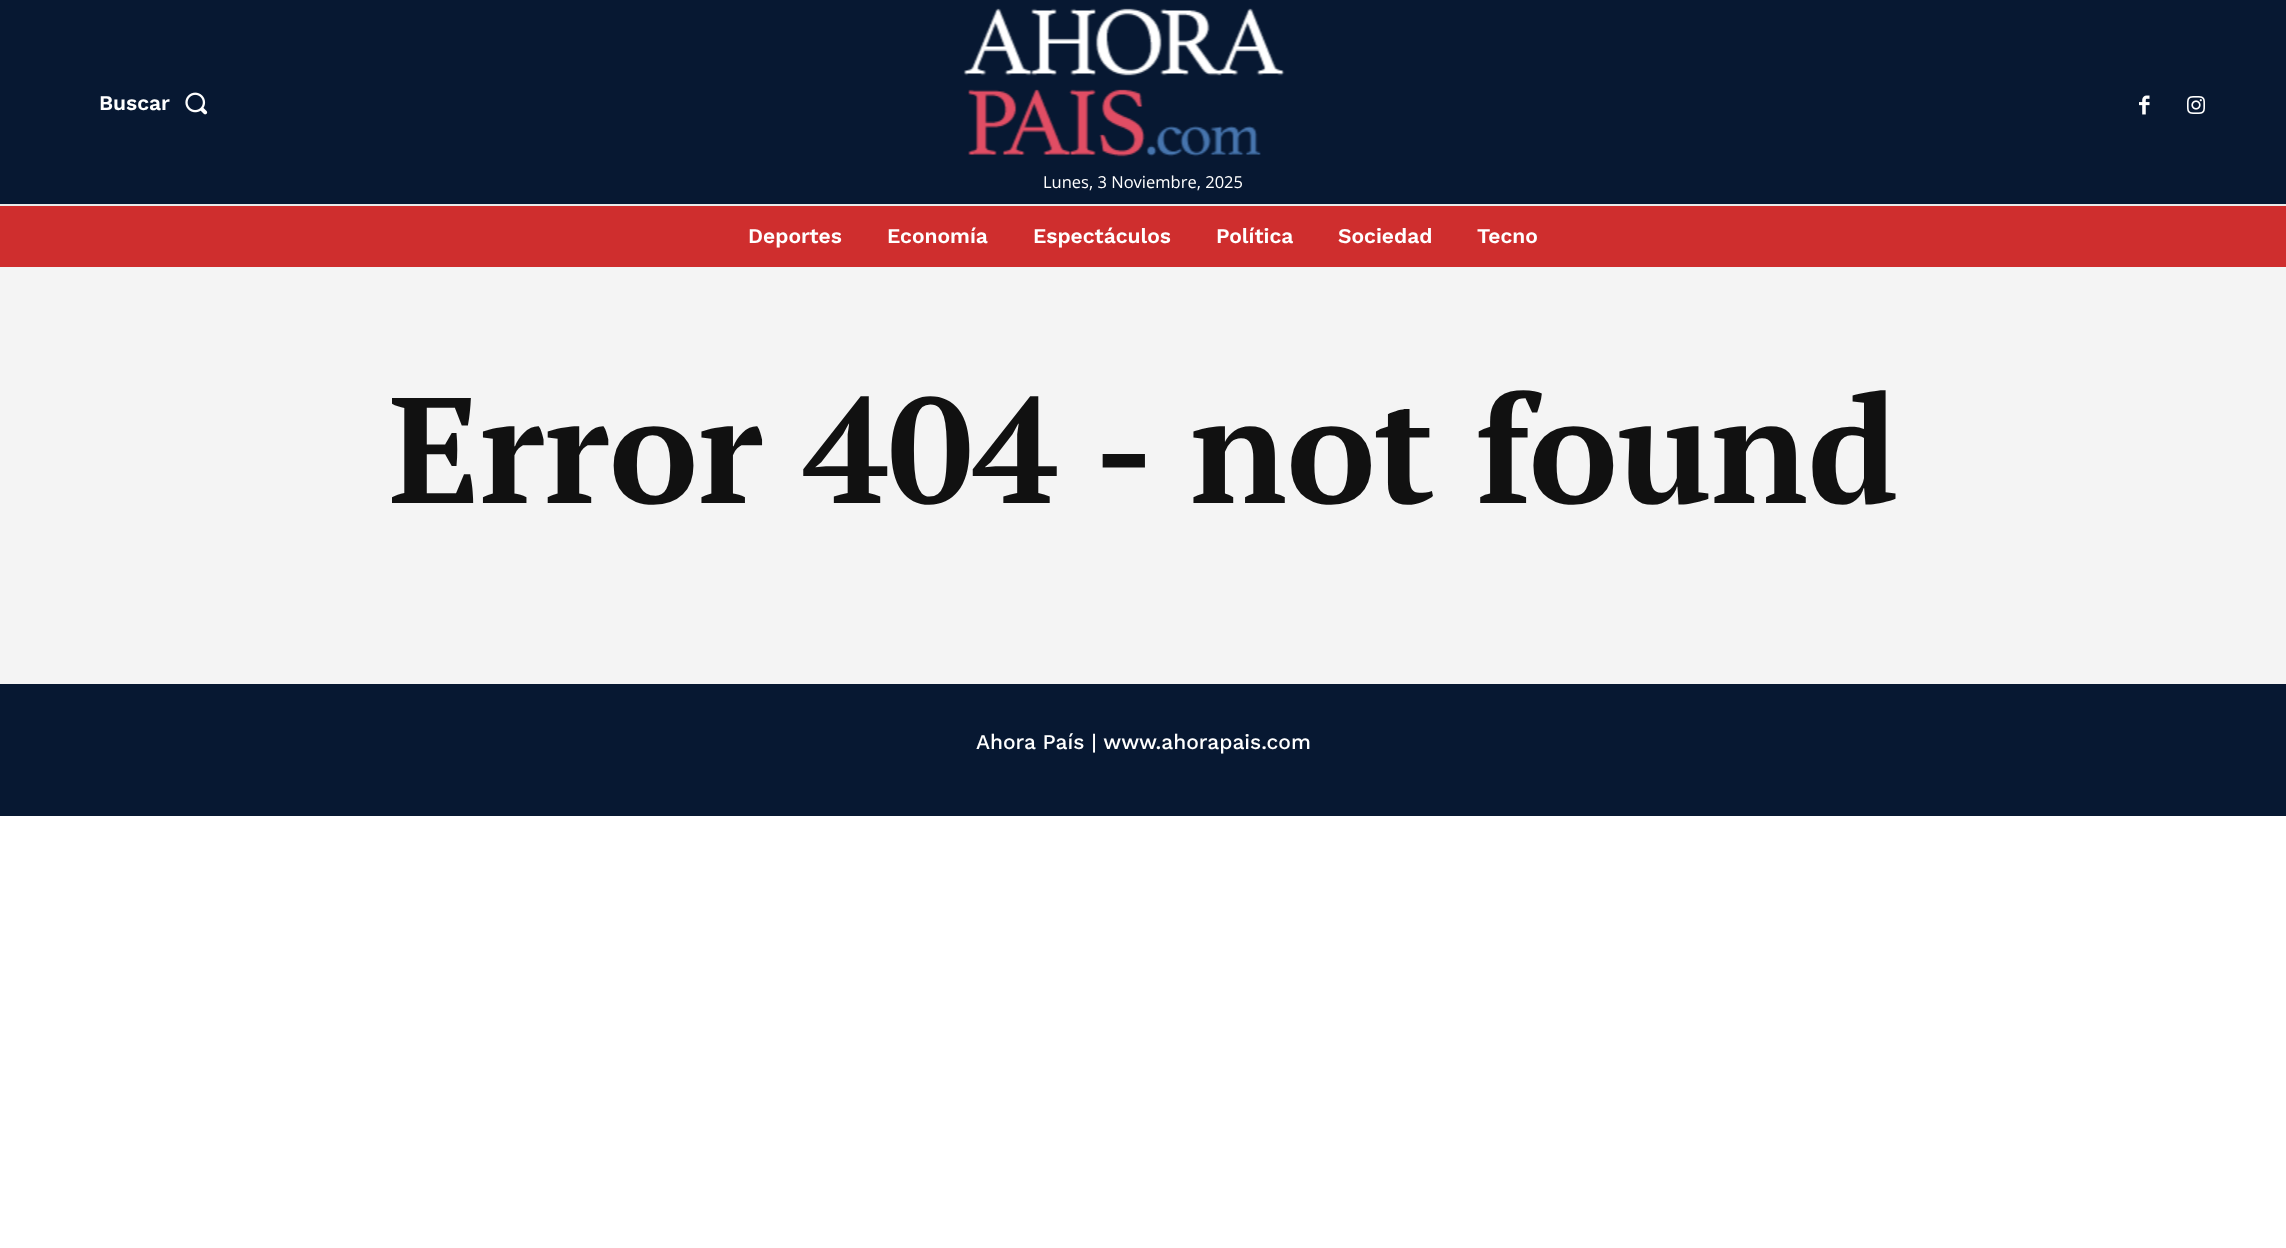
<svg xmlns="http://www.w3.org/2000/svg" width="2286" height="1248">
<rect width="100%" height="100%" fill="#fff"/>
<rect width="2286" height="204" fill="#071832"/>
<text x="99" y="110" style="font-family:Work Sans;font-size:21px;font-weight:600;fill:#fff">Buscar</text>
<image x="185" y="92" width="23" height="23" href="media/1.png"/>
<image x="2139" y="95" width="11" height="20" href="media/2.png"/>
<image x="2187" y="96" width="18" height="18" href="media/3.png"/>
<image x="963" y="8" width="322" height="149" href="media/4.png"/>
<text x="1043" y="188" style="font-family:Open Sans;font-size:16.5px;fill:#fff">Lunes, 3 Noviembre, 2025</text>
<rect y="206" width="2286" height="61" fill="#cf2e2e"/>
<rect y="204" width="2286" height="2" fill="#eaeaea"/>
<text x="748" y="243" style="font-family:Work Sans;font-size:21px;font-weight:600;fill:#fff">Deportes</text>
<text x="887" y="243" style="font-family:Work Sans;font-size:21px;font-weight:600;fill:#fff">Economía</text>
<text x="1033" y="243" style="font-family:Work Sans;font-size:21px;font-weight:600;fill:#fff">Espectáculos</text>
<text x="1216" y="243" style="font-family:Work Sans;font-size:21px;font-weight:600;fill:#fff">Política</text>
<text x="1338" y="243" style="font-family:Work Sans;font-size:21px;font-weight:600;fill:#fff">Sociedad</text>
<text x="1477" y="243" style="font-family:Work Sans;font-size:21px;font-weight:600;fill:#fff">Tecno</text>
<rect y="267" width="2286" height="417" fill="#f4f4f4"/>
<text x="389" y="503" style="font-family:PT Serif;font-size:150px;font-weight:bold;fill:#111">Error 404 - not found</text>
<rect y="684" width="2286" height="132" fill="#071832"/>
<text x="976" y="749" style="font-family:Work Sans;font-size:21px;font-weight:500;fill:#fff">Ahora País | www.ahorapais.com</text>
</svg>
